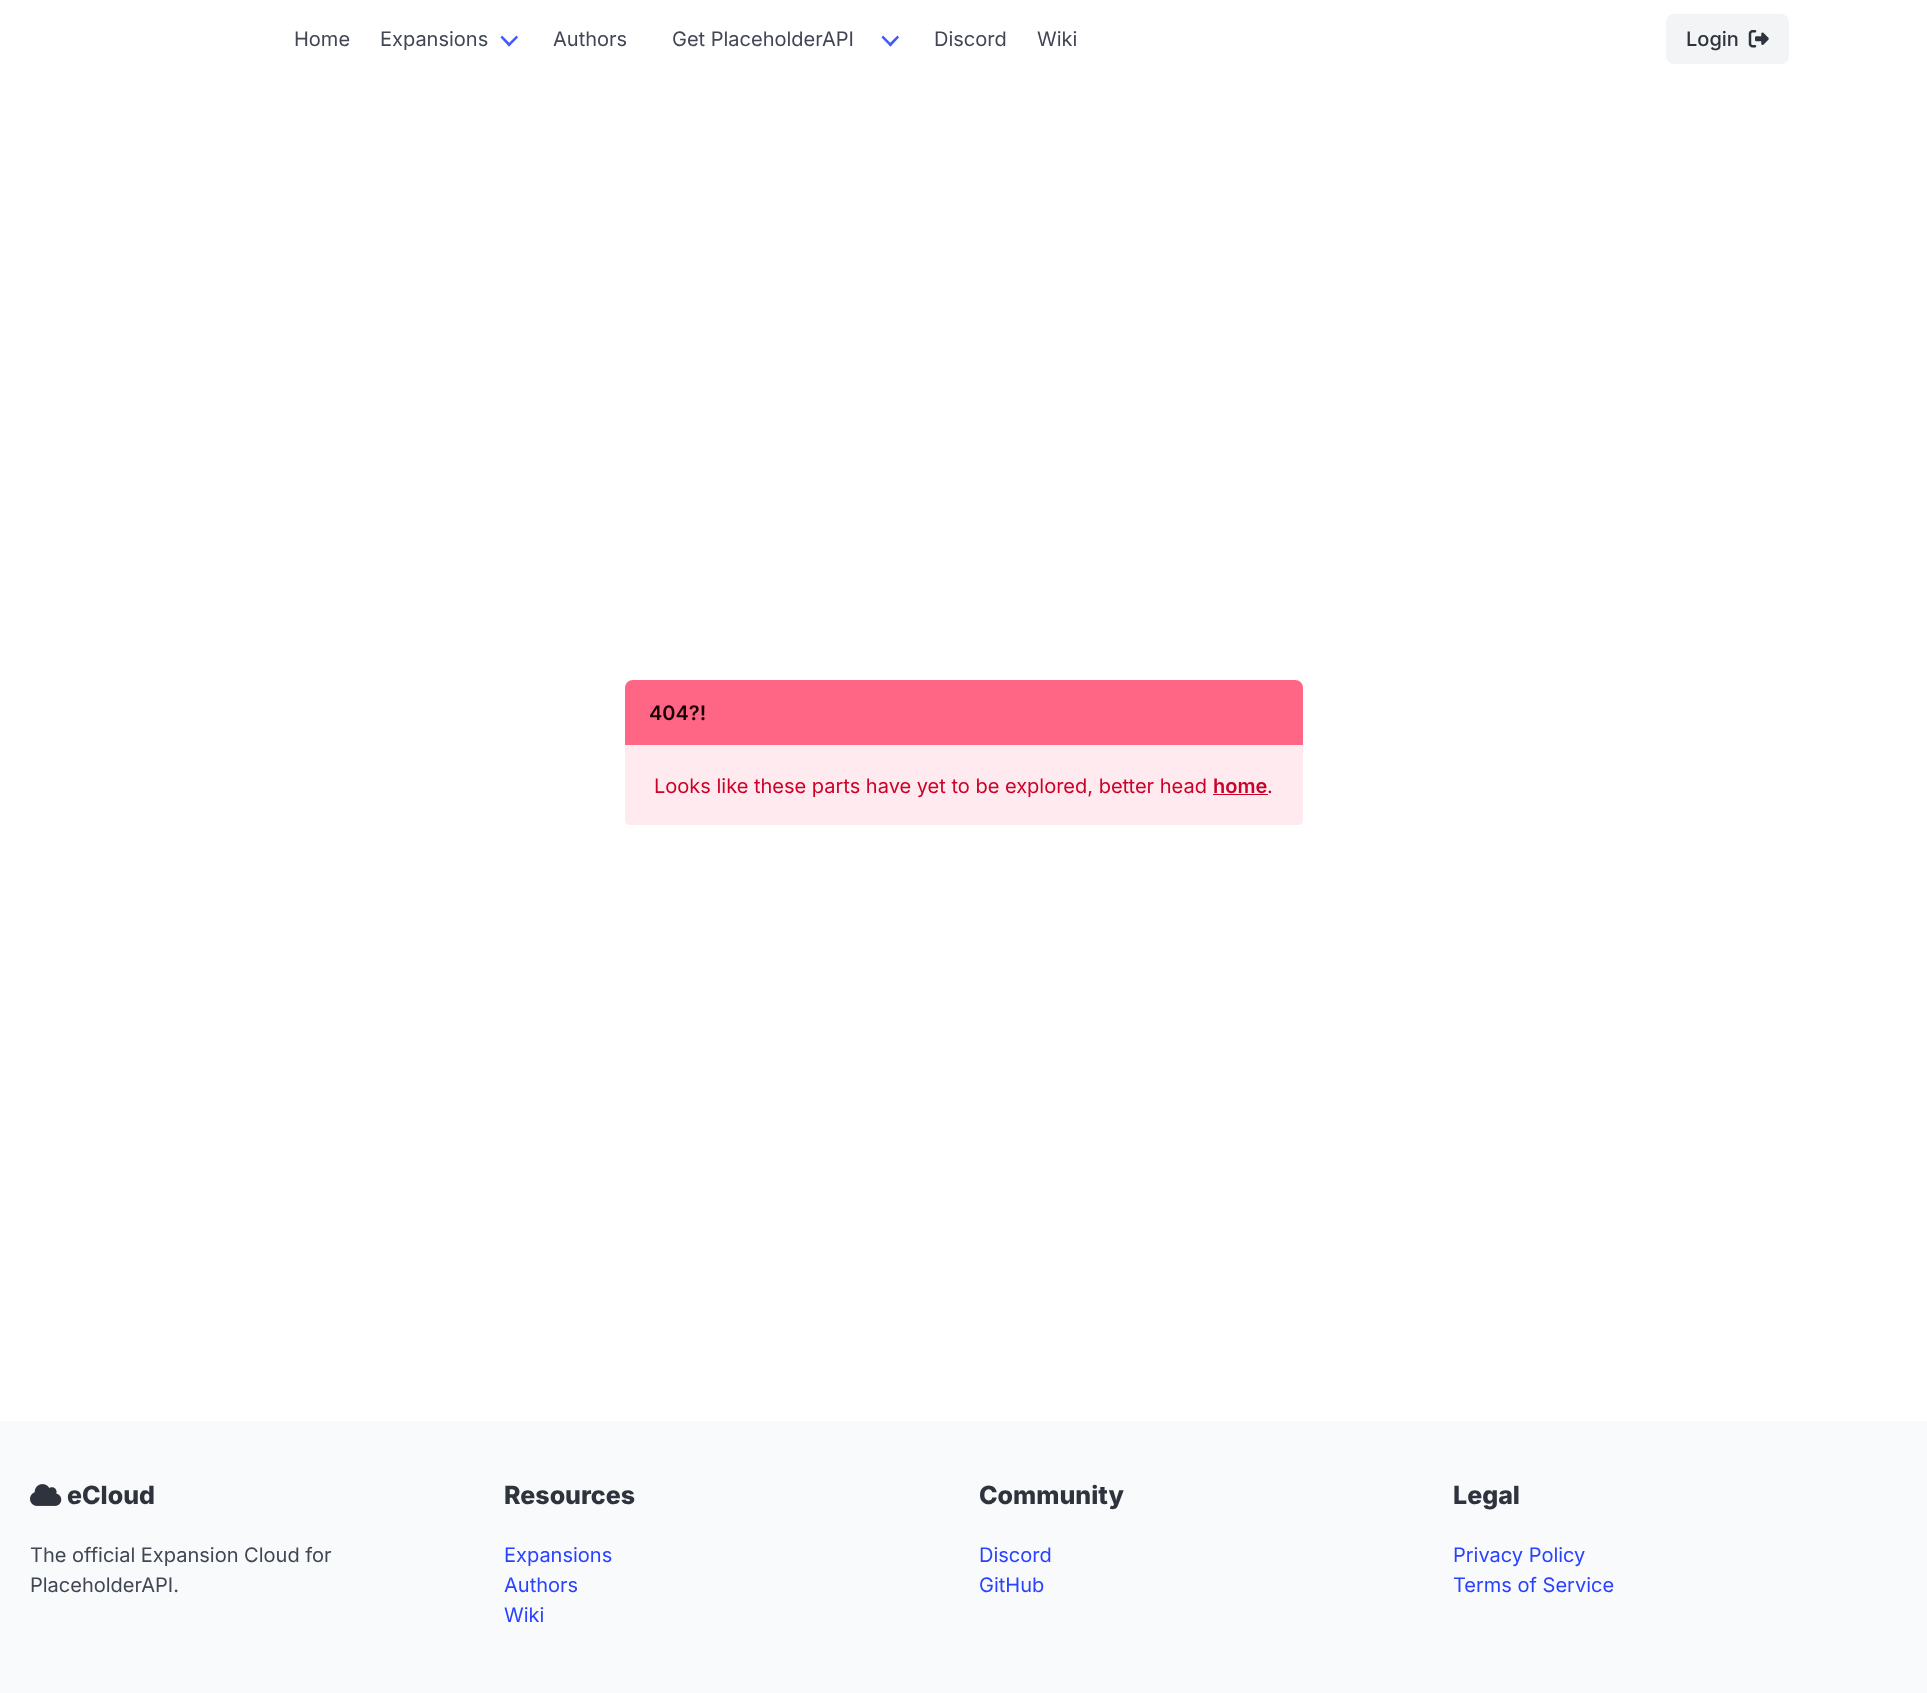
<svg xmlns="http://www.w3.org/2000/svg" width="1927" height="1693">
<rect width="100%" height="100%" fill="#fff"/>
<text x="294" y="46" style="font-family:Inter;font-size:20px;fill:#404654">Home</text>
<text x="380" y="46" style="font-family:Inter;font-size:20px;fill:#404654">Expansions</text>
<path d="M507.5 44.5l9-9l1.5 2l-9 9z" fill="#4258ff"/>
<path d="M500.5 37.5l1.5-2l9 9l-2 2z" fill="#4258ff"/>
<text x="553" y="46" style="font-family:Inter;font-size:20px;fill:#404654">Authors</text>
<text x="672" y="46" style="font-family:Inter;font-size:20px;fill:#404654">Get PlaceholderAPI</text>
<path d="M888.5 44.5l9-9l1.5 2l-8.5 9z" fill="#4258ff"/>
<path d="M881.5 37.5l1.5-2l9 9l-1.5 2z" fill="#4258ff"/>
<text x="934" y="46" style="font-family:Inter;font-size:20px;fill:#404654">Discord</text>
<text x="1037" y="46" style="font-family:Inter;font-size:20px;fill:#404654">Wiki</text>
<rect x="1666" y="14" width="123" height="50" rx="8" fill="#f3f4f6"/>
<text x="1686" y="46" style="font-family:Inter;font-size:20px;font-weight:500;fill:#2e333d">Login</text>
<image x="1748" y="30" width="21" height="18" href="media/1.png"/>
<path d="M633 680h662c4.5 0 8 3.5 8 8v57h-678v-57c0-4.5 3.5-8 8-8z" fill="#ff6685"/>
<text x="649" y="720" style="font-family:Inter;font-size:20px;font-weight:600;fill:#1a0005">404?!</text>
<path d="M625 745h678v75c0 3-2 5-5 5h-668c-3 0-5-2-5-5z" fill="#ffebef"/>
<text x="654" y="793" style="font-family:Inter;font-size:20px;fill:#cc0029">Looks like these parts have yet to be explored, better head</text>
<text x="1213" y="793" style="font-family:Inter;font-size:20px;font-weight:600;fill:#cc0029">home</text>
<rect x="1213" y="794" width="55" height="1" fill="#cc0029"/>
<text x="1267" y="793" style="font-family:Inter;font-size:20px;fill:#cc0029">.</text>
<rect y="1421" width="1927" height="272" fill="#f9fafb"/>
<image x="30" y="1484" width="32" height="22" href="media/2.png"/>
<text x="67" y="1504" style="font-family:Inter;font-size:25px;font-weight:800;fill:#2e333d">eCloud</text>
<text x="30" y="1562" style="font-family:Inter;font-size:20px;fill:#404654">The official Expansion Cloud for</text>
<text x="30" y="1592" style="font-family:Inter;font-size:20px;fill:#404654">PlaceholderAPI.</text>
<text x="504" y="1504" style="font-family:Inter;font-size:25px;font-weight:800;fill:#2e333d">Resources</text>
<text x="504" y="1562" style="font-family:Inter;font-size:20px;fill:#2942ff">Expansions</text>
<text x="504" y="1592" style="font-family:Inter;font-size:20px;fill:#2942ff">Authors</text>
<text x="504" y="1622" style="font-family:Inter;font-size:20px;fill:#2942ff">Wiki</text>
<text x="979" y="1504" style="font-family:Inter;font-size:25px;font-weight:800;fill:#2e333d">Community</text>
<text x="979" y="1562" style="font-family:Inter;font-size:20px;fill:#2942ff">Discord</text>
<text x="979" y="1592" style="font-family:Inter;font-size:20px;fill:#2942ff">GitHub</text>
<text x="1453" y="1504" style="font-family:Inter;font-size:25px;font-weight:800;fill:#2e333d">Legal</text>
<text x="1453" y="1562" style="font-family:Inter;font-size:20px;fill:#2942ff">Privacy Policy</text>
<text x="1453" y="1592" style="font-family:Inter;font-size:20px;fill:#2942ff">Terms of Service</text>
</svg>
